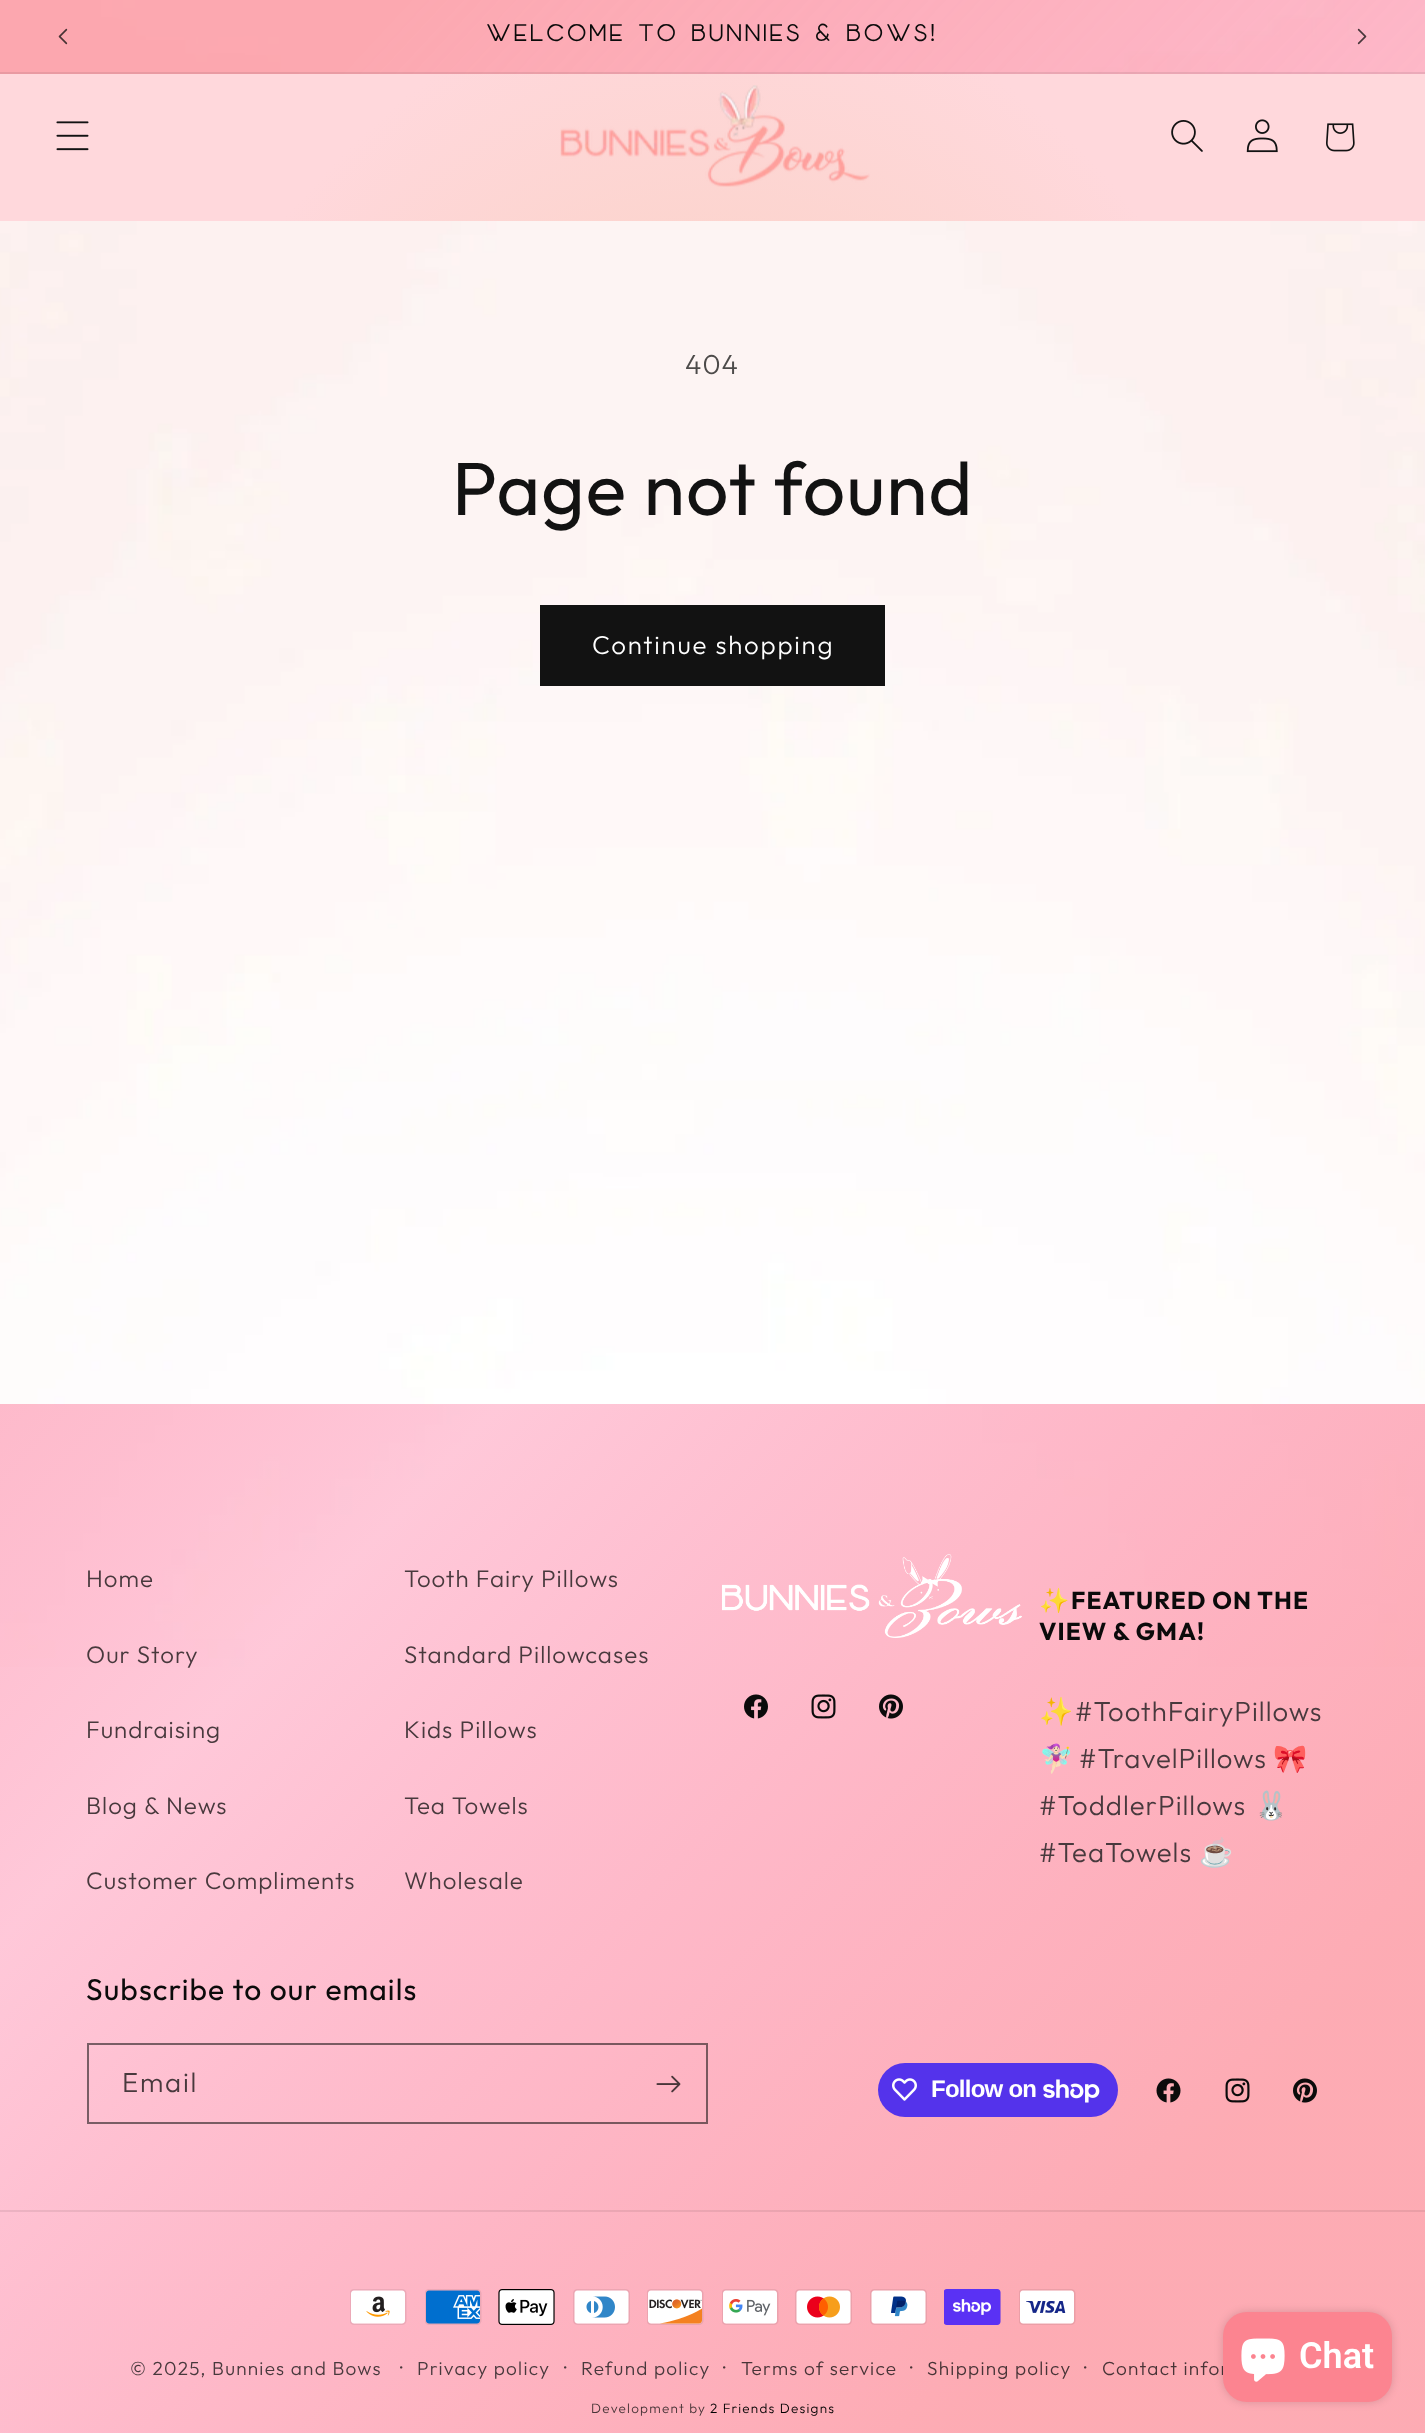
<svg xmlns="http://www.w3.org/2000/svg" width="1425" height="2433">
<defs>
<radialGradient id="g1" gradientUnits="userSpaceOnUse" cx="0" cy="0" r="1" gradientTransform="matrix(1008 0 0 1720 713 1217)"><stop offset="0.03" stop-color="#fdb3ba"/><stop offset="0.46" stop-color="#fad2c5"/><stop offset="0.72" stop-color="#ffd8dc"/></radialGradient>
<linearGradient id="g2" gradientUnits="userSpaceOnUse" x1="-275" y1="295" x2="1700" y2="2138"><stop offset="0.11" stop-color="#fc8490" stop-opacity="0.67"/><stop offset="0.49" stop-color="#fe6292" stop-opacity="0.35"/><stop offset="0.87" stop-color="#fc8490" stop-opacity="0.68"/></linearGradient>
</defs>
<rect width="100%" height="100%" fill="#fff"/>
<image x="0" y="0" width="1425" height="1667" href="media/1.png"/>
<rect y="72" width="1425" height="2" fill="#0b0b0b14"/>
<image x="58" y="28" width="10" height="17" href="media/2.png"/>
<text x="487" y="41" style="font-family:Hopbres;font-size:28.5px;letter-spacing:1.05px;fill:#0b0b0b">WELCOME TO BUNNIES &amp; BOWS!</text>
<image x="1357" y="28" width="10" height="17" href="media/3.png"/>
<rect y="74" width="1425" height="147" fill="url(#g1)"/>
<image x="56" y="121" width="33" height="30" href="media/4.png"/>
<image x="560" y="85" width="310" height="102" href="media/5.png"/>
<image x="1171" y="120" width="32" height="32" href="media/6.png"/>
<image x="1246" y="119" width="32" height="34" href="media/7.png"/>
<image x="1326" y="123" width="29" height="29" href="media/8.png"/>
<text x="685" y="374" style="font-family:Outfit;font-size:27.5px;font-weight:300;letter-spacing:1px;fill:#4d4b4a">404</text>
<text x="452" y="515" style="font-family:Outfit;font-size:75px;letter-spacing:1.1px;fill:#121212">Page not found</text>
<rect x="540" y="605" width="345" height="81" fill="#121212"/>
<text x="592" y="654" style="font-family:Outfit;font-size:25.9px;font-weight:300;letter-spacing:1.75px;fill:#fff">Continue shopping</text>
<rect y="1404" width="1425" height="1029" fill="url(#g2)"/>
<text x="86" y="1587" style="font-family:Outfit;font-size:24.1px;font-weight:300;letter-spacing:1px;fill:#48393d">Home</text>
<text x="86" y="1663" style="font-family:Outfit;font-size:24.1px;font-weight:300;letter-spacing:1px;fill:#48393d">Our Story</text>
<text x="86" y="1738" style="font-family:Outfit;font-size:24.1px;font-weight:300;letter-spacing:1px;fill:#48393d">Fundraising</text>
<text x="86" y="1814" style="font-family:Outfit;font-size:24.1px;font-weight:300;letter-spacing:1px;fill:#48393d">Blog &amp; News</text>
<text x="86" y="1889" style="font-family:Outfit;font-size:24.1px;font-weight:300;letter-spacing:1px;fill:#48393d">Customer Compliments</text>
<text x="404" y="1587" style="font-family:Outfit;font-size:24.1px;font-weight:300;letter-spacing:1px;fill:#48393d">Tooth Fairy Pillows</text>
<text x="404" y="1663" style="font-family:Outfit;font-size:24.1px;font-weight:300;letter-spacing:1px;fill:#48393d">Standard Pillowcases</text>
<text x="404" y="1738" style="font-family:Outfit;font-size:24.1px;font-weight:300;letter-spacing:1px;fill:#48393d">Kids Pillows</text>
<text x="404" y="1814" style="font-family:Outfit;font-size:24.1px;font-weight:300;letter-spacing:1px;fill:#48393d">Tea Towels</text>
<text x="404" y="1889" style="font-family:Outfit;font-size:24.1px;font-weight:300;letter-spacing:1px;fill:#48393d">Wholesale</text>
<image x="722" y="1554" width="300" height="84" href="media/9.png"/>
<image x="744" y="1694" width="24" height="25" href="media/10.png"/>
<image x="811" y="1694" width="25" height="25" href="media/11.png"/>
<image x="879" y="1694" width="24" height="25" href="media/12.png"/>
<text x="1039" y="1609" style="font-family:Noto Color Emoji;font-size:24.4px;letter-spacing:1.1px;fill:#0b0b0b">✨</text>
<text x="1071" y="1609" style="font-family:Outfit;font-size:24.4px;font-weight:bold;letter-spacing:1.1px;fill:#0b0b0b">FEATURED ON THE</text>
<text x="1039" y="1640" style="font-family:Outfit;font-size:24.4px;font-weight:bold;letter-spacing:1.1px;fill:#0b0b0b">VIEW &amp; GMA!</text>
<text x="1039" y="1721" style="font-family:Noto Color Emoji;font-size:27.5px;letter-spacing:1px;fill:#48393d">✨</text>
<text x="1075" y="1721" style="font-family:Outfit;font-size:27.5px;font-weight:300;letter-spacing:1px;fill:#48393d">#ToothFairyPillows</text>
<text x="1039" y="1768" style="font-family:Noto Color Emoji;font-size:27.5px;letter-spacing:1px;fill:#48393d">🧚🏻‍♀️</text>
<text x="1079" y="1768" style="font-family:Outfit;font-size:27.5px;font-weight:300;letter-spacing:1px;fill:#48393d">#TravelPillows</text>
<text x="1273" y="1768" style="font-family:Noto Color Emoji;font-size:27.5px;letter-spacing:1px;fill:#483437">🎀</text>
<text x="1039" y="1815" style="font-family:Outfit;font-size:27.5px;font-weight:300;letter-spacing:1px;fill:#48393d">#ToddlerPillows</text>
<text x="1254" y="1815" style="font-family:Noto Color Emoji;font-size:27.5px;letter-spacing:1px;fill:#483437">🐰</text>
<text x="1039" y="1862" style="font-family:Outfit;font-size:27.5px;font-weight:300;letter-spacing:1px;fill:#48393d">#TeaTowels</text>
<text x="1199" y="1862" style="font-family:Noto Color Emoji;font-size:27.5px;letter-spacing:1px;fill:#483437">☕️</text>
<text x="86" y="2000" style="font-family:Outfit;font-size:30px;letter-spacing:1.1px;fill:#0b0b0b">Subscribe to our emails</text>
<rect x="88" y="2044" width="619" height="79" fill="none" stroke="#0b0b0b8c" stroke-width="2"/>
<text x="122" y="2092" style="font-family:Outfit;font-size:27.5px;font-weight:300;letter-spacing:1.75px;fill:#48393d">Email</text>
<image x="656" y="2075" width="25" height="18" href="media/13.png"/>
<rect x="878" y="2063" width="240" height="54" rx="27" fill="#5433eb"/>
<image x="892" y="2078" width="25" height="23" href="media/14.png"/>
<text x="931" y="2097" style="font-family:Liberation Sans;font-size:24px;font-weight:bold;letter-spacing:-0.75px;fill:#fff">Follow on</text>
<image x="1043" y="2079" width="57" height="24" href="media/15.png"/>
<image x="1156" y="2078" width="25" height="25" href="media/16.png"/>
<image x="1225" y="2078" width="25" height="25" href="media/17.png"/>
<image x="1293" y="2078" width="24" height="25" href="media/18.png"/>
<rect y="2210" width="1425" height="2" fill="#0b0b0b14"/>
<image x="350" y="2289" width="57" height="36" href="media/19.png"/>
<image x="425" y="2289" width="57" height="36" href="media/20.png"/>
<image x="498" y="2289" width="57" height="36" href="media/21.png"/>
<image x="573" y="2289" width="57" height="36" href="media/22.png"/>
<image x="647" y="2289" width="57" height="36" href="media/23.png"/>
<image x="722" y="2289" width="57" height="36" href="media/24.png"/>
<image x="795" y="2289" width="57" height="36" href="media/25.png"/>
<image x="870" y="2289" width="57" height="36" href="media/26.png"/>
<image x="944" y="2289" width="57" height="36" href="media/27.png"/>
<image x="1019" y="2289" width="57" height="36" href="media/28.png"/>
<text x="130" y="2375" style="font-family:Outfit;font-size:19px;font-weight:300;letter-spacing:1.25px;fill:#48393d">© 2025,</text>
<text x="212" y="2375" style="font-family:Outfit;font-size:19px;font-weight:300;letter-spacing:1.25px;fill:#48393d">Bunnies and Bows</text>
<text x="400" y="2375" style="font-family:Outfit;font-size:21px;font-weight:300;letter-spacing:1.25px;fill:#48393d">·</text>
<text x="417" y="2375" style="font-family:Outfit;font-size:19px;font-weight:300;letter-spacing:1.25px;fill:#48393d">Privacy policy</text>
<text x="564" y="2375" style="font-family:Outfit;font-size:21px;font-weight:300;letter-spacing:1.25px;fill:#48393d">·</text>
<text x="581" y="2375" style="font-family:Outfit;font-size:19px;font-weight:300;letter-spacing:1.25px;fill:#48393d">Refund policy</text>
<text x="723" y="2375" style="font-family:Outfit;font-size:21px;font-weight:300;letter-spacing:1.25px;fill:#483437">·</text>
<text x="741" y="2375" style="font-family:Outfit;font-size:19px;font-weight:300;letter-spacing:1.25px;fill:#483437">Terms of service</text>
<text x="910" y="2375" style="font-family:Outfit;font-size:21px;font-weight:300;letter-spacing:1.25px;fill:#483437">·</text>
<text x="927" y="2375" style="font-family:Outfit;font-size:19px;font-weight:300;letter-spacing:1.25px;fill:#483437">Shipping policy</text>
<text x="1084" y="2375" style="font-family:Outfit;font-size:21px;font-weight:300;letter-spacing:1.25px;fill:#483437">·</text>
<text x="1102" y="2375" style="font-family:Outfit;font-size:19px;font-weight:300;letter-spacing:1.25px;fill:#483437">Contact infor</text>
<text x="591" y="2413" style="font-family:Outfit;font-size:13.5px;font-weight:300;letter-spacing:1.25px;fill:#483437">Development by</text>
<text x="710" y="2413" style="font-family:Outfit;font-size:13.5px;font-weight:300;letter-spacing:1.25px;fill:#000">2 Friends Designs</text>
<rect x="1223" y="2312" width="169" height="90" rx="24" fill="#00000026" filter="blur(4px)"/>
<rect x="1223" y="2312" width="169" height="90" rx="24" fill="#fc8490"/>
<image x="1241" y="2338" width="44" height="44" href="media/29.png"/>
<text x="1299" y="2368" style="font-family:Roboto;font-size:36px;font-weight:600;fill:#fff">Chat</text>
</svg>
